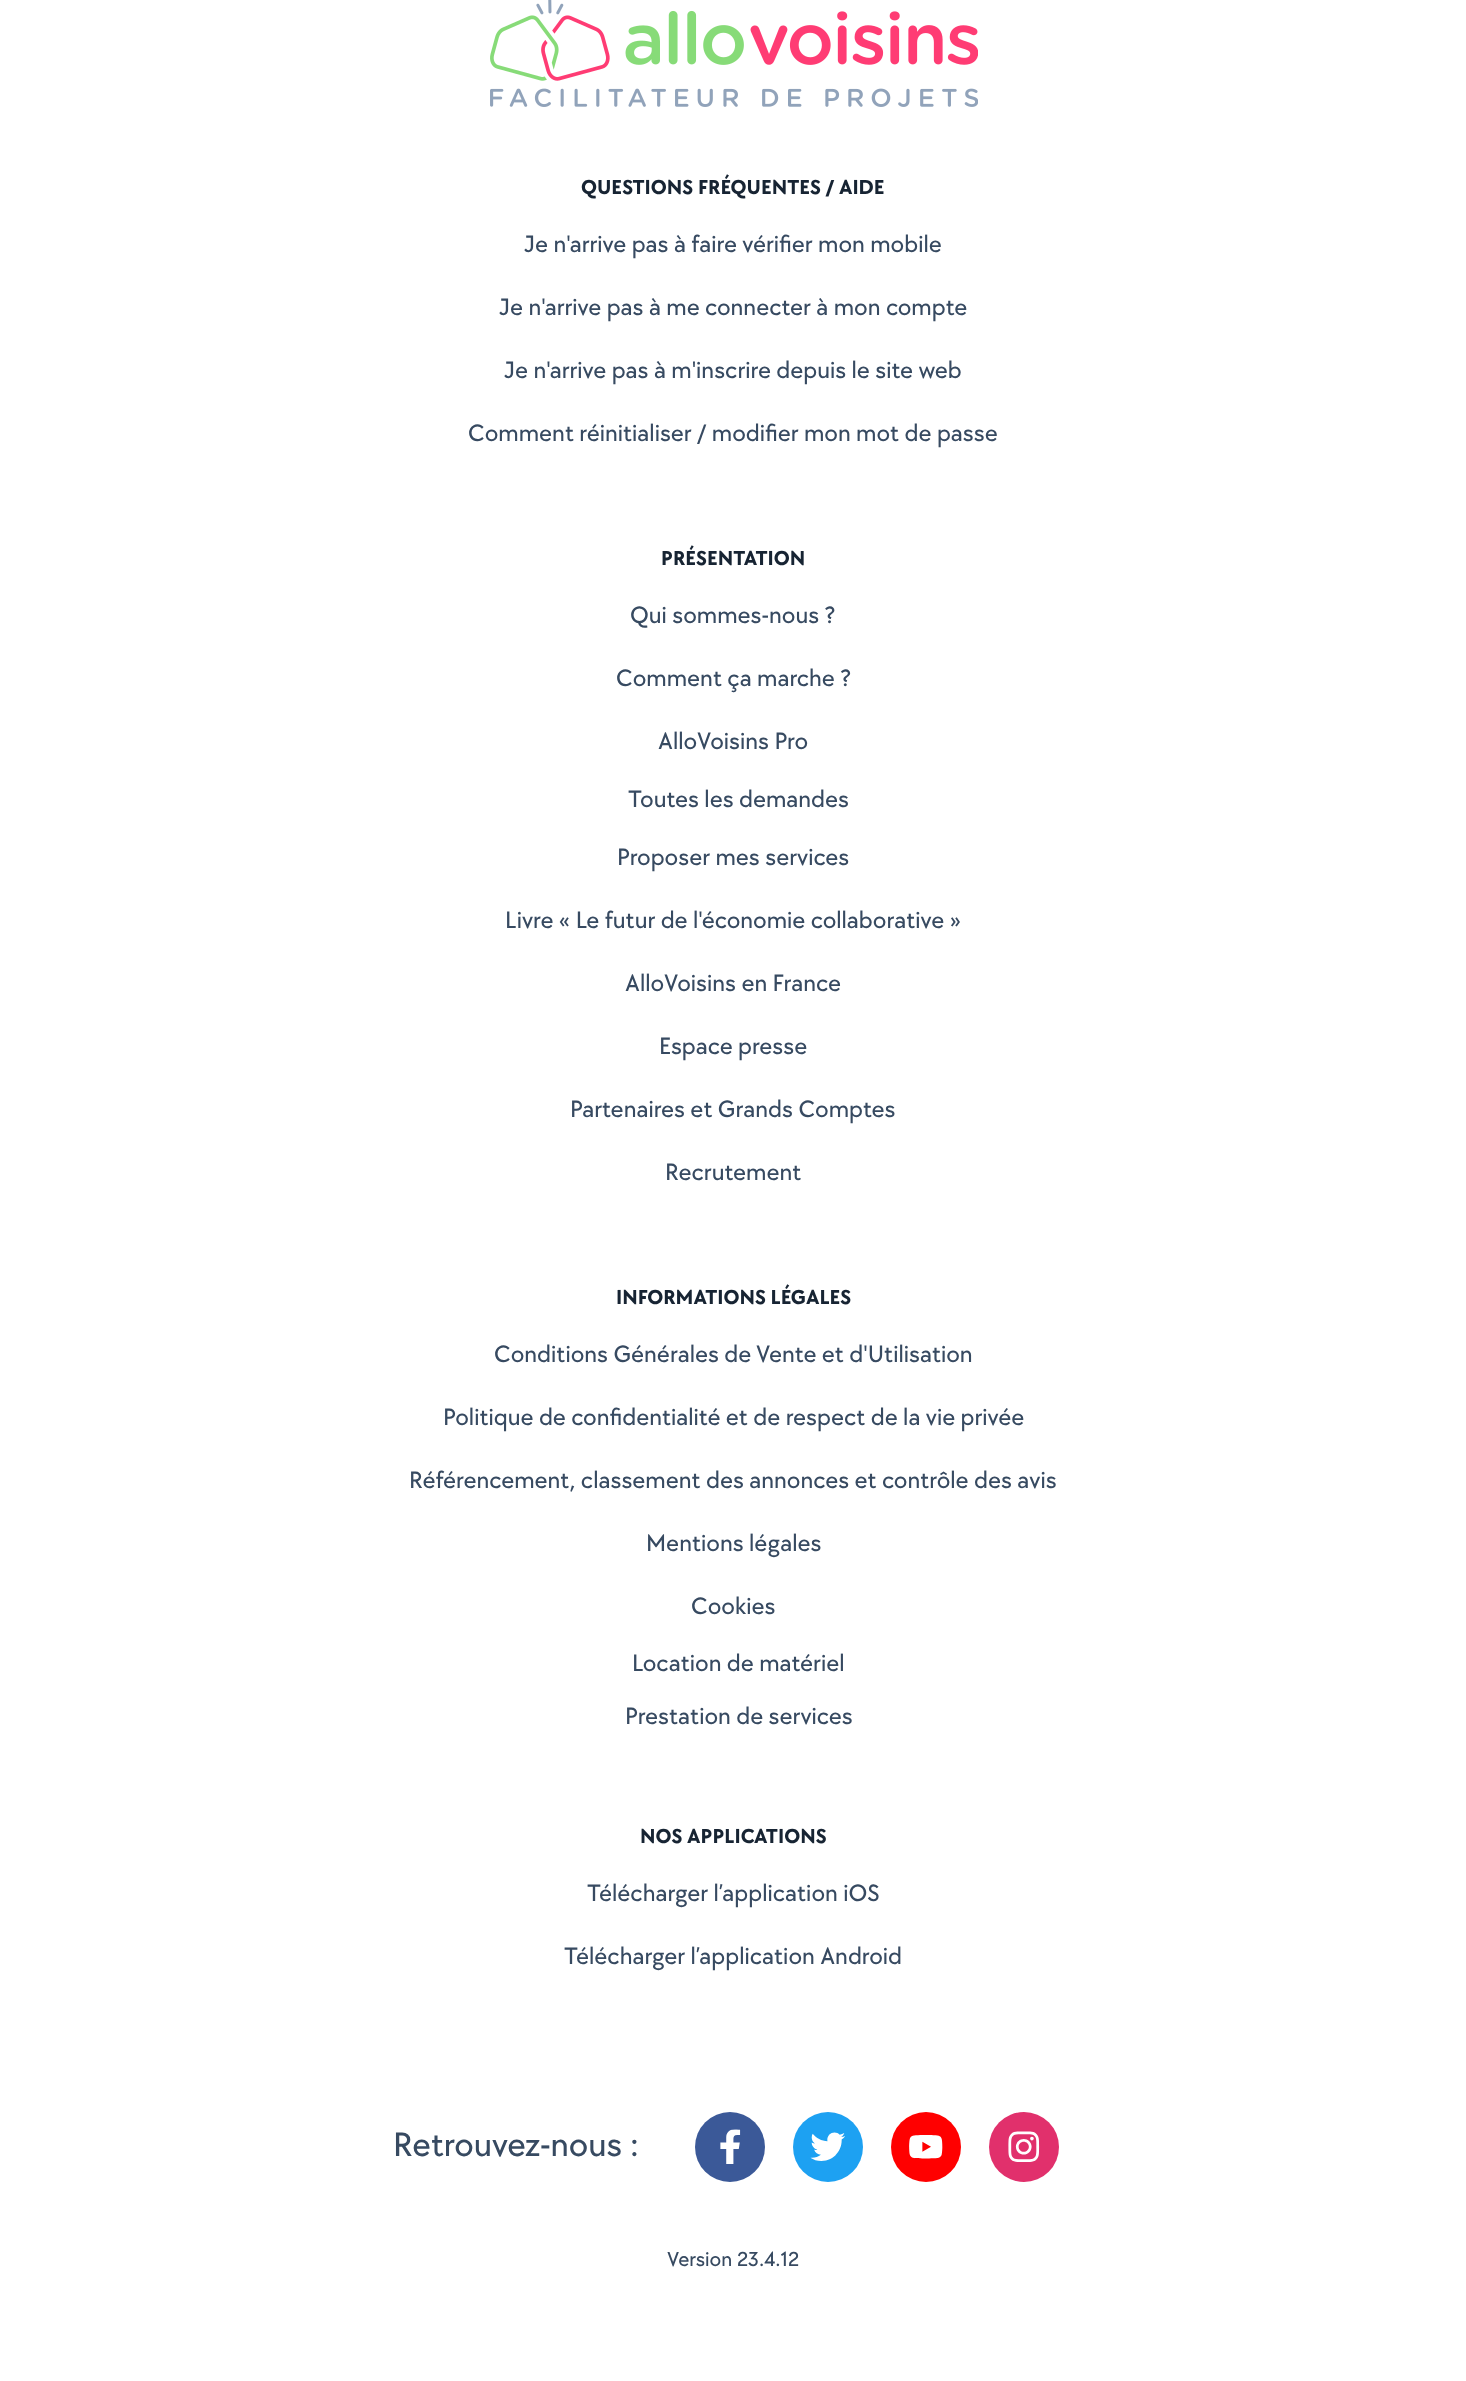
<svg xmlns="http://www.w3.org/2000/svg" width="1466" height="2381">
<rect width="100%" height="100%" fill="#fff"/>
<image x="490" y="0" width="488" height="107" href="media/1.png"/>
<text x="581" y="194" style="font-family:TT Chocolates;font-size:21px;font-weight:bold;fill:#172433">QUESTIONS FRÉQUENTES / AIDE</text>
<text x="524" y="252" style="font-family:TT Chocolates;font-size:24.5px;font-weight:500;fill:#374a61">Je n'arrive pas à faire vérifier mon mobile</text>
<text x="499" y="315" style="font-family:TT Chocolates;font-size:24.5px;font-weight:500;fill:#374a61">Je n'arrive pas à me connecter à mon compte</text>
<text x="504" y="378" style="font-family:TT Chocolates;font-size:24.5px;font-weight:500;fill:#374a61">Je n'arrive pas à m'inscrire depuis le site web</text>
<text x="468" y="441" style="font-family:TT Chocolates;font-size:24.5px;font-weight:500;fill:#374a61">Comment réinitialiser / modifier mon mot de passe</text>
<text x="661" y="565" style="font-family:TT Chocolates;font-size:21px;font-weight:bold;fill:#172433">PRÉSENTATION</text>
<text x="630" y="623" style="font-family:TT Chocolates;font-size:24.5px;font-weight:500;fill:#374a61">Qui sommes-nous ?</text>
<text x="616" y="686" style="font-family:TT Chocolates;font-size:24.5px;font-weight:500;fill:#374a61">Comment ça marche ?</text>
<text x="658" y="749" style="font-family:TT Chocolates;font-size:24.5px;font-weight:500;fill:#374a61">AlloVoisins Pro</text>
<text x="628" y="807" style="font-family:TT Chocolates;font-size:24.5px;font-weight:500;fill:#374a61">Toutes les demandes</text>
<text x="617" y="865" style="font-family:TT Chocolates;font-size:24.5px;font-weight:500;fill:#374a61">Proposer mes services</text>
<text x="505" y="928" style="font-family:TT Chocolates;font-size:24.5px;font-weight:500;fill:#374a61">Livre « Le futur de l'économie collaborative »</text>
<text x="625" y="991" style="font-family:TT Chocolates;font-size:24.5px;font-weight:500;fill:#374a61">AlloVoisins en France</text>
<text x="659" y="1054" style="font-family:TT Chocolates;font-size:24.5px;font-weight:500;fill:#374a61">Espace presse</text>
<text x="570" y="1117" style="font-family:TT Chocolates;font-size:24.5px;font-weight:500;fill:#374a61">Partenaires et Grands Comptes</text>
<text x="665" y="1180" style="font-family:TT Chocolates;font-size:24.5px;font-weight:500;fill:#374a61">Recrutement</text>
<text x="616" y="1304" style="font-family:TT Chocolates;font-size:21px;font-weight:bold;fill:#172433">INFORMATIONS LÉGALES</text>
<text x="494" y="1362" style="font-family:TT Chocolates;font-size:24.5px;font-weight:500;fill:#374a61">Conditions Générales de Vente et d'Utilisation</text>
<text x="443" y="1425" style="font-family:TT Chocolates;font-size:24.5px;font-weight:500;fill:#374a61">Politique de confidentialité et de respect de la vie privée</text>
<text x="409" y="1488" style="font-family:TT Chocolates;font-size:24.5px;font-weight:500;fill:#374a61">Référencement, classement des annonces et contrôle des avis</text>
<text x="646" y="1551" style="font-family:TT Chocolates;font-size:24.5px;font-weight:500;fill:#374a61">Mentions légales</text>
<text x="691" y="1614" style="font-family:TT Chocolates;font-size:24.5px;font-weight:500;fill:#374a61">Cookies</text>
<text x="632" y="1671" style="font-family:TT Chocolates;font-size:24.5px;font-weight:500;fill:#374a61">Location de matériel</text>
<text x="625" y="1724" style="font-family:TT Chocolates;font-size:24.5px;font-weight:500;fill:#374a61">Prestation de services</text>
<text x="640" y="1843" style="font-family:TT Chocolates;font-size:21px;font-weight:bold;fill:#172433">NOS APPLICATIONS</text>
<text x="587" y="1901" style="font-family:TT Chocolates;font-size:24.5px;font-weight:500;fill:#374a61">Télécharger l’application iOS</text>
<text x="564" y="1964" style="font-family:TT Chocolates;font-size:24.5px;font-weight:500;fill:#374a61">Télécharger l’application Android</text>
<text x="393" y="2156" style="font-family:TT Chocolates;font-size:35px;font-weight:500;fill:#374a61">Retrouvez-nous :</text>
<circle cx="730" cy="2147" r="35" fill="#3b5998"/>
<image x="720" y="2129" width="21" height="35" href="media/2.png"/>
<circle cx="828" cy="2147" r="35" fill="#1da1f2"/>
<image x="810" y="2132" width="35" height="29" href="media/3.png"/>
<circle cx="926" cy="2147" r="35" fill="#f00"/>
<image x="909" y="2135" width="34" height="24" href="media/4.png"/>
<circle cx="1024" cy="2147" r="35" fill="#e1306c"/>
<image x="1008" y="2131" width="32" height="31" href="media/5.png"/>
<text x="667" y="2266" style="font-family:TT Chocolates;font-size:21px;font-weight:500;fill:#374a61">Version 23.4.12</text>
</svg>
